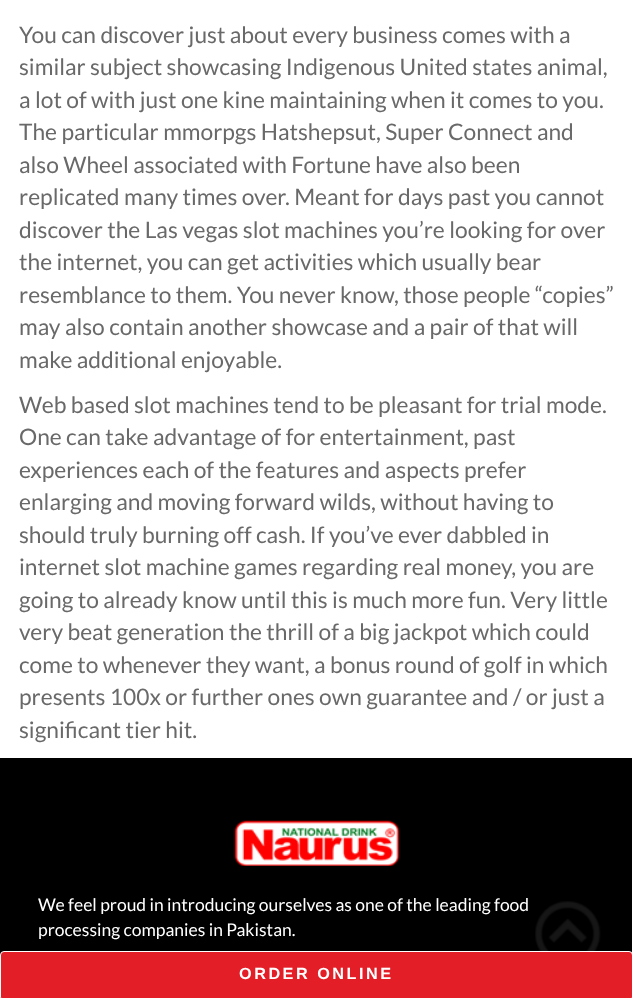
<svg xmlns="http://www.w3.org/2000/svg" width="632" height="998">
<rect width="100%" height="100%" fill="#fff"/>
<text x="19" y="43" style="font-family:Lato;font-size:22.75px;fill:#696969">You can discover just about every business comes with a</text>
<text x="19" y="75" style="font-family:Lato;font-size:22.75px;fill:#696969">similar subject showcasing Indigenous United states animal,</text>
<text x="19" y="108" style="font-family:Lato;font-size:22.75px;fill:#696969">a lot of with just one kine maintaining when it comes to you.</text>
<text x="19" y="140" style="font-family:Lato;font-size:22.75px;fill:#696969">The particular mmorpgs Hatshepsut, Super Connect and</text>
<text x="19" y="173" style="font-family:Lato;font-size:22.75px;fill:#696969">also Wheel associated with Fortune have also been</text>
<text x="19" y="205" style="font-family:Lato;font-size:22.75px;fill:#696969">replicated many times over. Meant for days past you cannot</text>
<text x="19" y="238" style="font-family:Lato;font-size:22.75px;fill:#696969">discover the Las vegas slot machines you’re looking for over</text>
<text x="19" y="270" style="font-family:Lato;font-size:22.75px;fill:#696969">the internet, you can get activities which usually bear</text>
<text x="19" y="303" style="font-family:Lato;font-size:22.75px;fill:#696969">resemblance to them. You never know, those people “copies”</text>
<text x="19" y="335" style="font-family:Lato;font-size:22.75px;fill:#696969">may also contain another showcase and a pair of that will</text>
<text x="19" y="368" style="font-family:Lato;font-size:22.75px;fill:#696969">make additional enjoyable.</text>
<text x="19" y="413" style="font-family:Lato;font-size:22.75px;fill:#696969">Web based slot machines tend to be pleasant for trial mode.</text>
<text x="19" y="445" style="font-family:Lato;font-size:22.75px;fill:#696969">One can take advantage of for entertainment, past</text>
<text x="19" y="478" style="font-family:Lato;font-size:22.75px;fill:#696969">experiences each of the features and aspects prefer</text>
<text x="19" y="510" style="font-family:Lato;font-size:22.75px;fill:#696969">enlarging and moving forward wilds, without having to</text>
<text x="19" y="543" style="font-family:Lato;font-size:22.75px;fill:#696969">should truly burning off cash. If you’ve ever dabbled in</text>
<text x="19" y="575" style="font-family:Lato;font-size:22.75px;fill:#696969">internet slot machine games regarding real money, you are</text>
<text x="19" y="608" style="font-family:Lato;font-size:22.75px;fill:#696969">going to already know until this is much more fun. Very little</text>
<text x="19" y="640" style="font-family:Lato;font-size:22.75px;fill:#696969">very beat generation the thrill of a big jackpot which could</text>
<text x="19" y="673" style="font-family:Lato;font-size:22.75px;fill:#696969">come to whenever they want, a bonus round of golf in which</text>
<text x="19" y="705" style="font-family:Lato;font-size:22.75px;fill:#696969">presents 100x or further ones own guarantee and / or just a</text>
<text x="19" y="738" style="font-family:Lato;font-size:22.75px;fill:#696969">significant tier hit.</text>
<rect y="758" width="632" height="240" fill="#000"/>
<image x="235" y="820" width="164" height="46" href="media/1.png"/>
<text x="38" y="911" style="font-family:Lato;font-size:17.5px;fill:#fff">We feel proud in introducing ourselves as one of the leading food</text>
<text x="38" y="936" style="font-family:Lato;font-size:17.5px;fill:#fff">processing companies in Pakistan.</text>
<image x="535" y="901" width="66" height="50" href="media/2.png"/>
<rect x="0.5" y="951.5" width="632" height="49" rx="3.5" fill="#e31e27" stroke="#fff"/>
<text x="239" y="979" style="font-family:Liberation Sans;font-size:16.25px;font-weight:bold;letter-spacing:2.5px;fill:#fff">ORDER ONLINE</text>
</svg>
